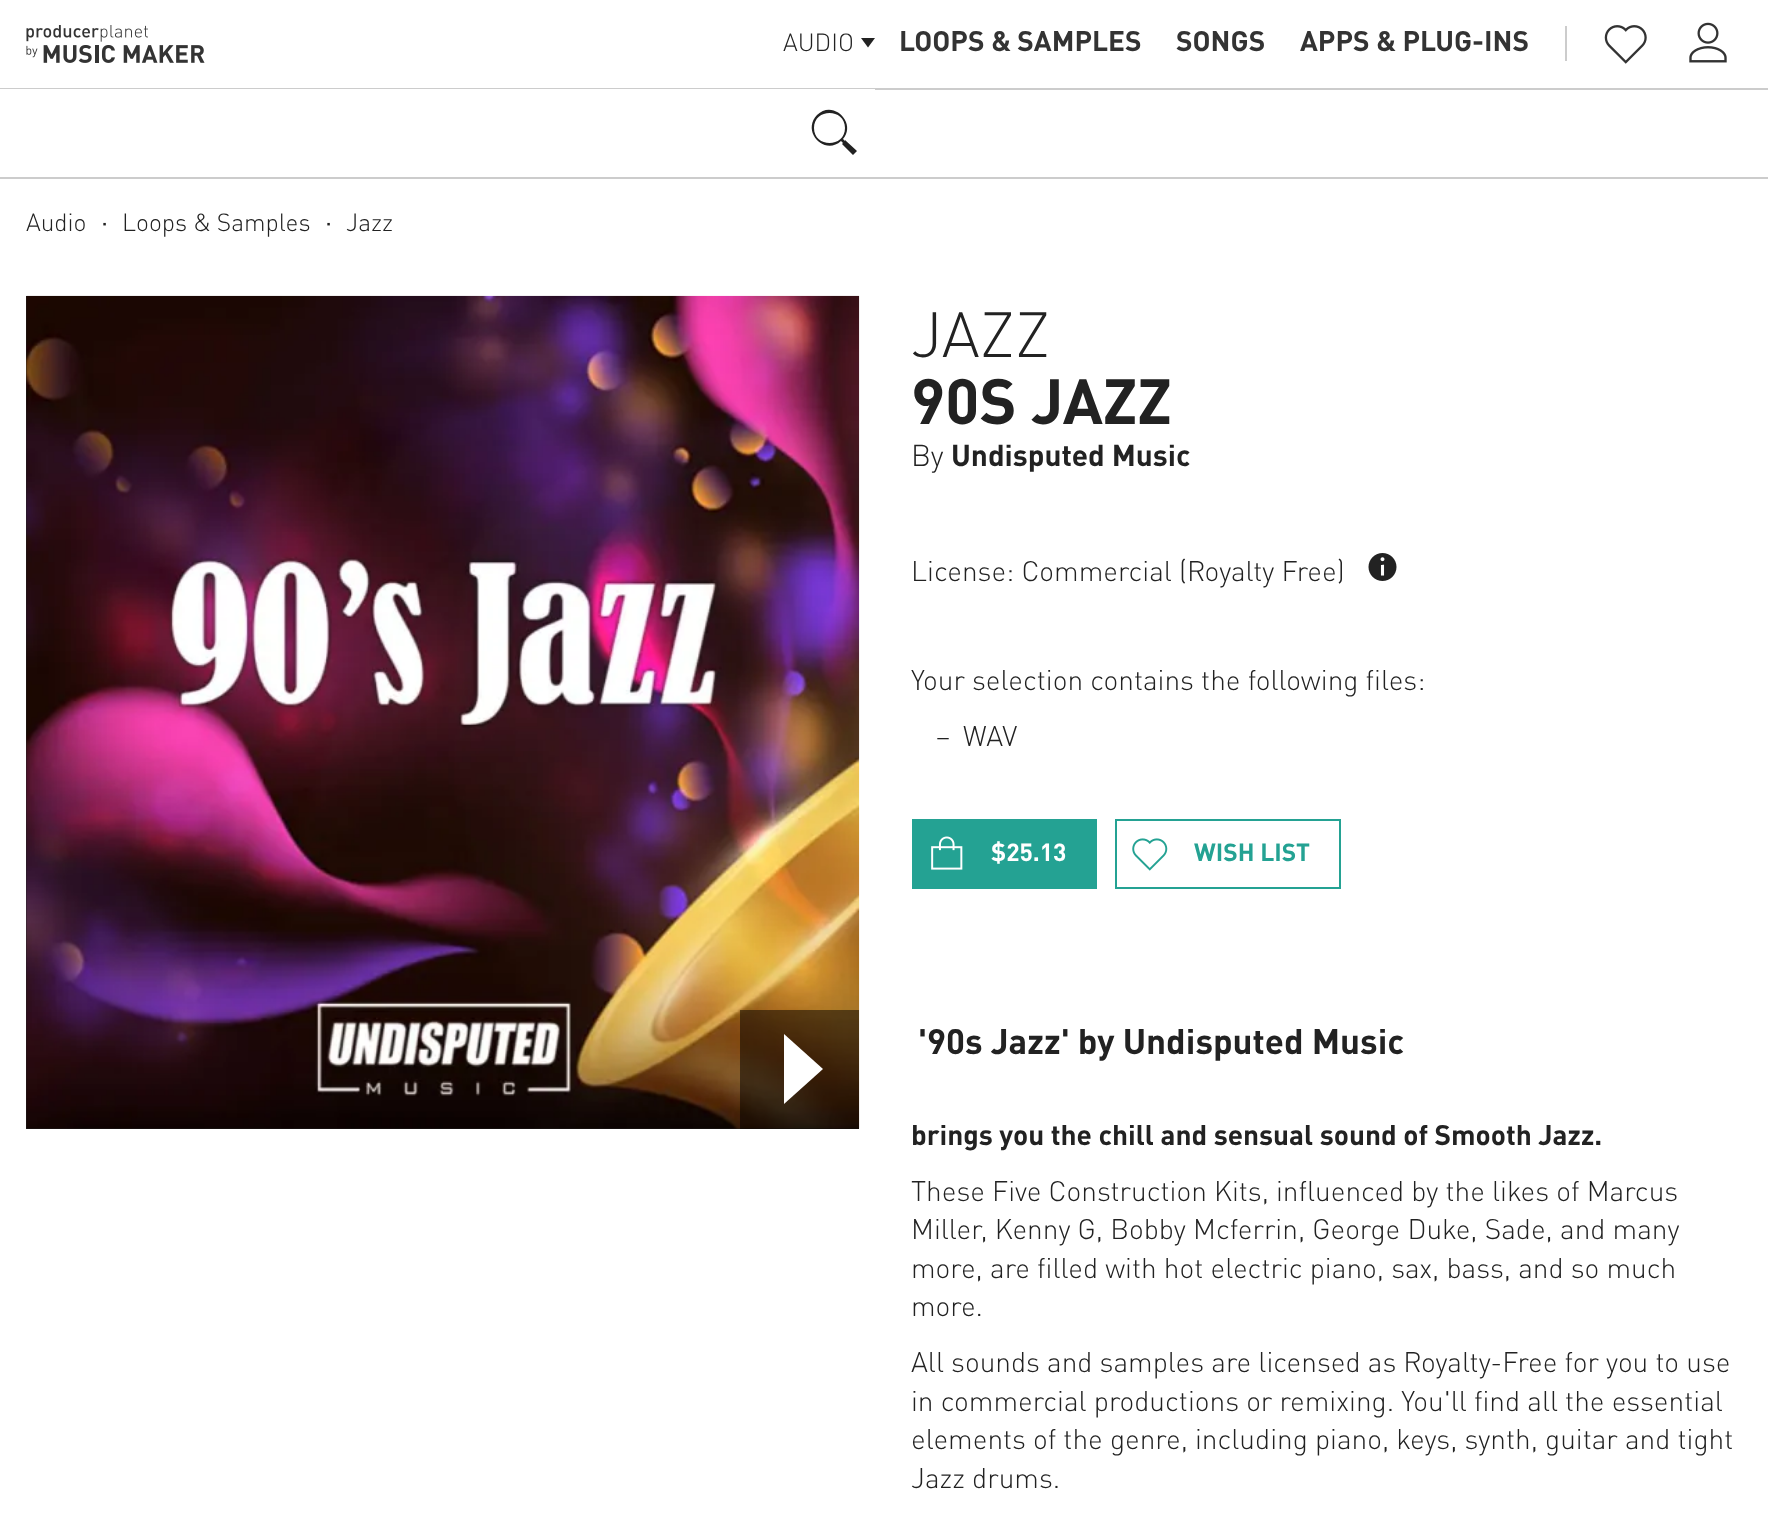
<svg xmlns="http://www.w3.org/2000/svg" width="1768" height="1529">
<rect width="100%" height="100%" fill="#fff"/>
<rect y="88" width="1768" height="2" fill="#ccc"/>
<image x="26" y="25" width="179" height="38" href="media/1.png"/>
<text x="783" y="51" style="font-family:DIN;font-size:24.5px;font-weight:300;fill:#222">AUDIO</text>
<path d="M861 38l7 9.5l7-9.5z" fill="#222"/>
<text x="899" y="51" style="font-family:DIN;font-size:28px;font-weight:bold;fill:#333">LOOPS &amp; SAMPLES</text>
<text x="1176" y="51" style="font-family:DIN;font-size:28px;font-weight:bold;fill:#333">SONGS</text>
<text x="1300" y="51" style="font-family:DIN;font-size:28px;font-weight:bold;fill:#333">APPS &amp; PLUG-INS</text>
<rect x="1565" y="26" width="2" height="35" fill="#ccc"/>
<image x="1604" y="25" width="43" height="39" href="media/2.png"/>
<image x="1689" y="22" width="38" height="41" href="media/3.png"/>
<rect y="177" width="1768" height="2" fill="#ccc"/>
<rect y="89" width="875" height="1" fill="#fff"/>
<path d="M845 140l12 11l-4 4l-11-11l1-1l-2-2c-16 15-40-9-24-26c16-16 40 8 26 24l2 2zm-31-12c0 20 31 20 31 0c0-20-31-20-31 0z" fill="#222"/>
<text x="26" y="231" style="font-family:DIN;font-size:24.5px;font-weight:300;fill:#222">Audio</text>
<text x="101" y="231" style="font-family:'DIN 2';font-size:24.5px;font-weight:bold;fill:#222">·</text>
<text x="122" y="231" style="font-family:DIN;font-size:24.5px;font-weight:300;fill:#222">Loops &amp; Samples</text>
<text x="325" y="231" style="font-family:'DIN 2';font-size:24.5px;font-weight:bold;fill:#222">·</text>
<text x="346" y="231" style="font-family:DIN;font-size:24.5px;font-weight:300;fill:#222">Jazz</text>
<rect x="26" y="296" width="833" height="833" fill="#222"/>
<image x="26" y="295" width="834" height="834" href="media/4.png"/>
<rect x="740" y="1010" width="119" height="119" fill="#00000080"/>
<path d="M784 1104l39-35l-39-35z" fill="#fff"/>
<text x="911" y="357" style="font-family:DIN;font-size:63px;font-weight:300;fill:#222">JAZZ</text>
<text x="911" y="424" style="font-family:DIN;font-size:63px;font-weight:bold;fill:#222">90S JAZZ</text>
<text x="911" y="466" style="font-family:DIN;font-size:29.75px;font-weight:300;fill:#222">By</text>
<text x="951" y="466" style="font-family:DIN;font-size:29.75px;font-weight:bold;fill:#222">Undisputed Music</text>
<text x="911" y="581" style="font-family:DIN;font-size:28px;font-weight:300;fill:#222">License: Commercial (Royalty Free)</text>
<image x="1368" y="553" width="29" height="28" href="media/5.png"/>
<text x="911" y="690" style="font-family:DIN;font-size:28px;font-weight:300;fill:#222">Your selection contains the following files:</text>
<text x="935" y="746" style="font-family:DIN;font-size:28px;font-weight:300;fill:#222">–</text>
<text x="963" y="746" style="font-family:DIN;font-size:28px;font-weight:300;fill:#222">WAV</text>
<rect x="912" y="819" width="185" height="70" fill="#24a293"/>
<image x="931" y="836" width="32" height="34" href="media/6.png"/>
<text x="991" y="861" style="font-family:DIN;font-size:24.5px;font-weight:bold;fill:#fff">$25.13</text>
<rect x="1116" y="820" width="224" height="68" fill="none" stroke="#24a293" stroke-width="2"/>
<image x="1132" y="838" width="36" height="33" href="media/7.png"/>
<text x="1194" y="861" style="font-family:DIN;font-size:24.5px;font-weight:bold;fill:#24a293">WISH LIST</text>
<text x="918" y="1054" style="font-family:DIN;font-size:35px;font-weight:bold;fill:#222">'90s Jazz' by Undisputed Music</text>
<text x="911" y="1145" style="font-family:DIN;font-size:28px;font-weight:bold;fill:#222">brings you the chill and sensual sound of Smooth Jazz.</text>
<text x="911" y="1201" style="font-family:DIN;font-size:28px;font-weight:300;fill:#222">These Five Construction Kits, influenced by the likes of Marcus</text>
<text x="911" y="1239" style="font-family:DIN;font-size:28px;font-weight:300;fill:#222">Miller, Kenny G, Bobby Mcferrin, George Duke, Sade, and many</text>
<text x="911" y="1278" style="font-family:DIN;font-size:28px;font-weight:300;fill:#222">more, are filled with hot electric piano, sax, bass, and so much</text>
<text x="911" y="1316" style="font-family:DIN;font-size:28px;font-weight:300;fill:#222">more.</text>
<text x="911" y="1372" style="font-family:DIN;font-size:28px;font-weight:300;fill:#222">All sounds and samples are licensed as Royalty-Free for you to use</text>
<text x="911" y="1411" style="font-family:DIN;font-size:28px;font-weight:300;fill:#222">in commercial productions or remixing. You'll find all the essential</text>
<text x="911" y="1449" style="font-family:DIN;font-size:28px;font-weight:300;fill:#222">elements of the genre, including piano, keys, synth, guitar and tight</text>
<text x="911" y="1488" style="font-family:DIN;font-size:28px;font-weight:300;fill:#222">Jazz drums.</text>
</svg>
